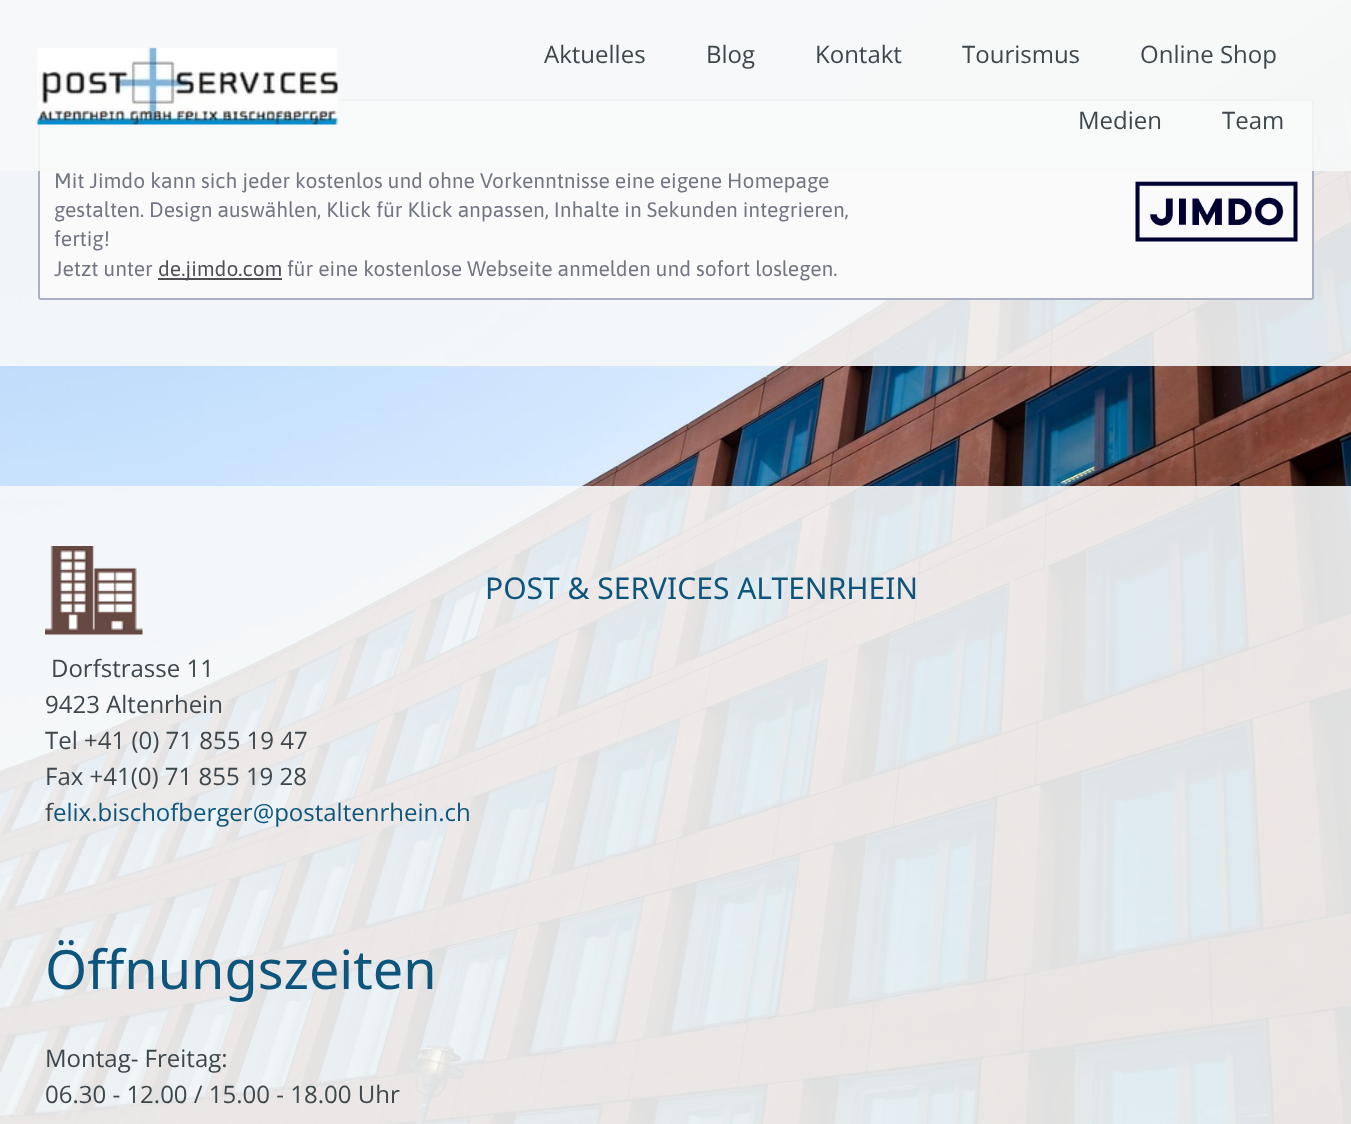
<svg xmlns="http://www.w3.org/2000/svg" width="1351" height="1124">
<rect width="100%" height="100%" fill="#fff"/>
<image x="0" y="0" width="1351" height="1124" href="media/1.png"/>
<rect width="1351" height="366" fill="#f7f8f8e6"/>
<rect x="39" y="100" width="1274" height="199" rx="2" fill="#fafafa" stroke="#abb1c2" stroke-width="2"/>
<rect width="1351" height="171" fill="#f7f8f8e6"/>
<image x="37" y="47" width="301" height="78" href="media/2.png"/>
<text x="544" y="63" style="font-family:Open Sans;font-size:24px;fill:#3e474c">Aktuelles</text>
<text x="706" y="63" style="font-family:Open Sans;font-size:24px;fill:#3e474c">Blog</text>
<text x="815" y="63" style="font-family:Open Sans;font-size:24px;fill:#3e474c">Kontakt</text>
<text x="962" y="63" style="font-family:Open Sans;font-size:24px;fill:#3e474c">Tourismus</text>
<text x="1140" y="63" style="font-family:Open Sans;font-size:24px;fill:#3e474c">Online Shop</text>
<text x="1078" y="129" style="font-family:Open Sans;font-size:24px;fill:#3e474c">Medien</text>
<text x="1222" y="129" style="font-family:Open Sans;font-size:24px;fill:#3e474c">Team</text>
<text x="54" y="188" style="font-family:Asap;font-size:21px;fill:#727583">Mit Jimdo kann sich jeder kostenlos und ohne Vorkenntnisse eine eigene Homepage</text>
<text x="54" y="217" style="font-family:Asap;font-size:21px;fill:#727583">gestalten. Design auswählen, Klick für Klick anpassen, Inhalte in Sekunden integrieren,</text>
<text x="54" y="246" style="font-family:Asap;font-size:21px;fill:#727583">fertig!</text>
<text x="54" y="276" style="font-family:Asap;font-size:21px;fill:#727583">Jetzt unter</text>
<rect x="158" y="278" width="124" height="2" fill="#4e5056"/>
<text x="158" y="276" style="font-family:Asap;font-size:21px;fill:#4e5056">de.jimdo.com</text>
<text x="287" y="276" style="font-family:Asap;font-size:21px;fill:#727583">für eine kostenlose Webseite anmelden und sofort loslegen.</text>
<image x="1135" y="181" width="163" height="61" href="media/3.png"/>
<rect y="486" width="1351" height="638" fill="#f7f8f8e6"/>
<image x="45" y="546" width="98" height="89" href="media/4.png"/>
<text x="485" y="599" style="font-family:Noto Sans;font-size:30px;fill:#0d557d">POST &amp; SERVICES ALTENRHEIN</text>
<text x="51" y="677" style="font-family:Open Sans;font-size:24px;fill:#3e474c">Dorfstrasse 11</text>
<text x="45" y="713" style="font-family:Open Sans;font-size:24px;fill:#3e474c">9423 Altenrhein</text>
<text x="45" y="749" style="font-family:Open Sans;font-size:24px;fill:#3e474c">Tel +41 (0) 71 855 19 47</text>
<text x="45" y="785" style="font-family:Open Sans;font-size:24px;fill:#3e474c">Fax +41(0) 71 855 19 28</text>
<text x="45" y="821" style="font-family:Open Sans;font-size:24px;fill:#3e474c">f</text>
<text x="53" y="821" style="font-family:Open Sans;font-size:24px;fill:#0d557d">elix.bischofberger@postaltenrhein.ch</text>
<text x="45" y="989" style="font-family:Noto Sans;font-size:54px;fill:#0d557d">Öffnungszeiten</text>
<text x="45" y="1067" style="font-family:Open Sans;font-size:24px;fill:#3e474c">Montag- Freitag:</text>
<text x="45" y="1103" style="font-family:Open Sans;font-size:24px;fill:#3e474c">06.30 - 12.00 / 15.00 - 18.00 Uhr</text>
</svg>
